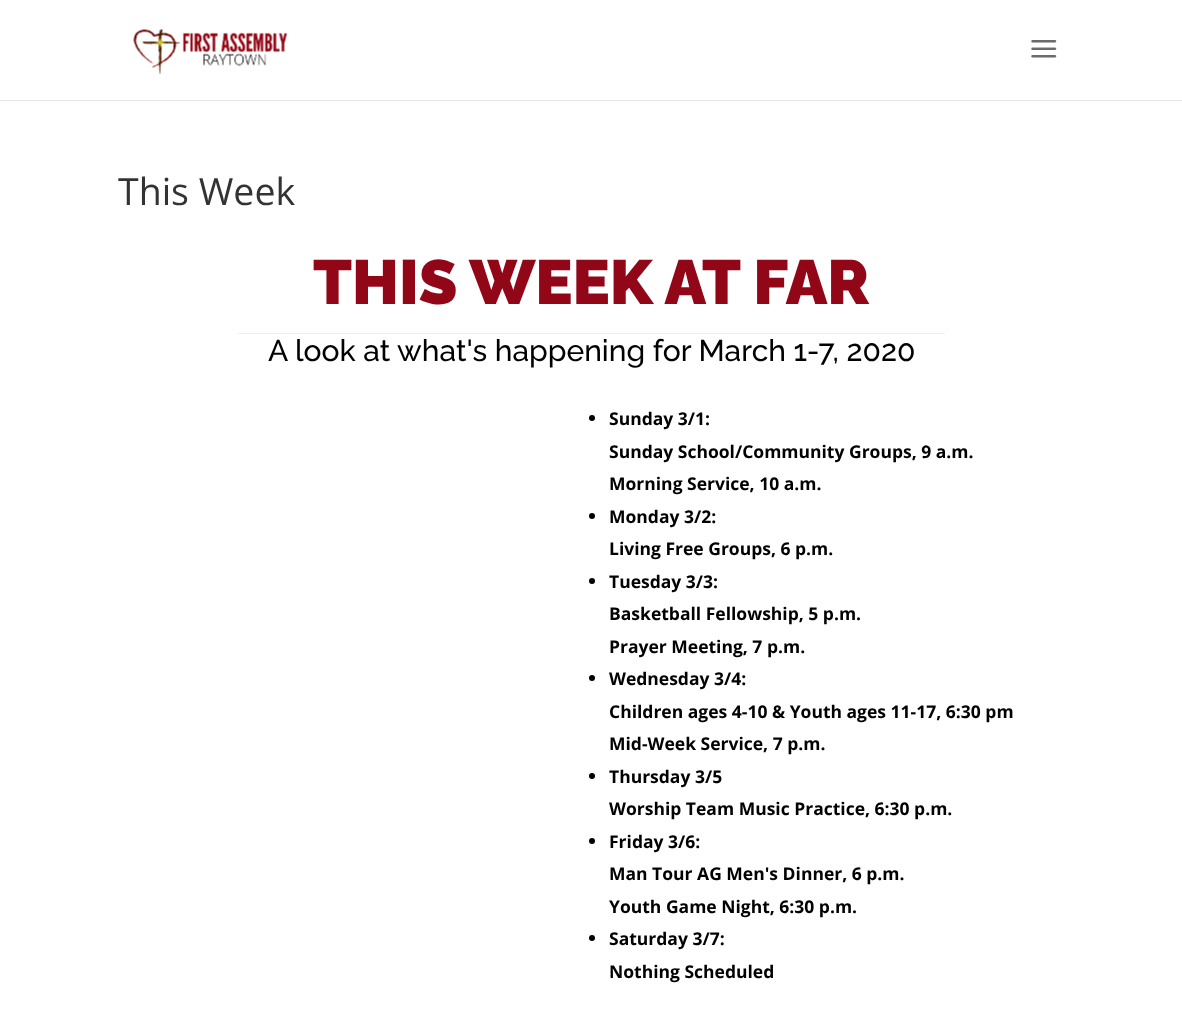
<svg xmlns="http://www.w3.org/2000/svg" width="1182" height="1018">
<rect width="100%" height="100%" fill="#fff"/>
<path d="M0 100v1h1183v-100h-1v99z" fill="#e6e6e6"/>
<image x="133" y="28" width="155" height="47" href="media/1.png"/>
<image x="1031" y="40" width="26" height="18" href="media/2.png"/>
<text x="118" y="205" style="font-family:Open Sans;font-size:37.5px;fill:#333">This Week</text>
<text x="313" y="304" style="font-family:Raleway;font-size:62.5px;font-weight:900;fill:#920718">THIS WEEK AT FAR</text>
<rect x="238" y="333" width="707" height="1" fill="#eee"/>
<text x="268" y="361" style="font-family:Raleway;font-size:30px;font-weight:500;fill:#000">A look at what's happening for March 1-7, 2020</text>
<circle cx="592" cy="418" r="3" fill="#000"/>
<text x="609" y="425" style="font-family:Open Sans;font-size:17.5px;font-weight:bold;fill:#000">Sunday 3/1:</text>
<text x="609" y="458" style="font-family:Open Sans;font-size:17.5px;font-weight:bold;fill:#000">Sunday School/Community Groups, 9 a.m.</text>
<text x="609" y="490" style="font-family:Open Sans;font-size:17.5px;font-weight:bold;fill:#000">Morning Service, 10 a.m.</text>
<circle cx="592" cy="516" r="3" fill="#000"/>
<text x="609" y="523" style="font-family:Open Sans;font-size:17.5px;font-weight:bold;fill:#000">Monday 3/2:</text>
<text x="609" y="555" style="font-family:Open Sans;font-size:17.5px;font-weight:bold;fill:#000">Living Free Groups, 6 p.m.</text>
<circle cx="592" cy="581" r="3" fill="#000"/>
<text x="609" y="588" style="font-family:Open Sans;font-size:17.5px;font-weight:bold;fill:#000">Tuesday 3/3:</text>
<text x="609" y="620" style="font-family:Open Sans;font-size:17.5px;font-weight:bold;fill:#000">Basketball Fellowship, 5 p.m.</text>
<text x="609" y="653" style="font-family:Open Sans;font-size:17.5px;font-weight:bold;fill:#000">Prayer Meeting, 7 p.m.</text>
<circle cx="592" cy="678" r="3" fill="#000"/>
<text x="609" y="685" style="font-family:Open Sans;font-size:17.5px;font-weight:bold;fill:#000">Wednesday 3/4:</text>
<text x="609" y="718" style="font-family:Open Sans;font-size:17.5px;font-weight:bold;fill:#000">Children ages 4-10 &amp; Youth ages 11-17, 6:30 pm</text>
<text x="609" y="750" style="font-family:Open Sans;font-size:17.5px;font-weight:bold;fill:#000">Mid-Week Service, 7 p.m.</text>
<circle cx="592" cy="776" r="3" fill="#000"/>
<text x="609" y="783" style="font-family:Open Sans;font-size:17.5px;font-weight:bold;fill:#000">Thursday 3/5</text>
<text x="609" y="815" style="font-family:Open Sans;font-size:17.5px;font-weight:bold;fill:#000">Worship Team Music Practice, 6:30 p.m.</text>
<circle cx="592" cy="841" r="3" fill="#000"/>
<text x="609" y="848" style="font-family:Open Sans;font-size:17.5px;font-weight:bold;fill:#000">Friday 3/6:</text>
<text x="609" y="880" style="font-family:Open Sans;font-size:17.5px;font-weight:bold;fill:#000">Man Tour AG Men's Dinner, 6 p.m.</text>
<text x="609" y="913" style="font-family:Open Sans;font-size:17.5px;font-weight:bold;fill:#000">Youth Game Night, 6:30 p.m.</text>
<circle cx="592" cy="938" r="3" fill="#000"/>
<text x="609" y="945" style="font-family:Open Sans;font-size:17.5px;font-weight:bold;fill:#000">Saturday 3/7:</text>
<text x="609" y="978" style="font-family:Open Sans;font-size:17.5px;font-weight:bold;fill:#000">Nothing Scheduled</text>
</svg>
